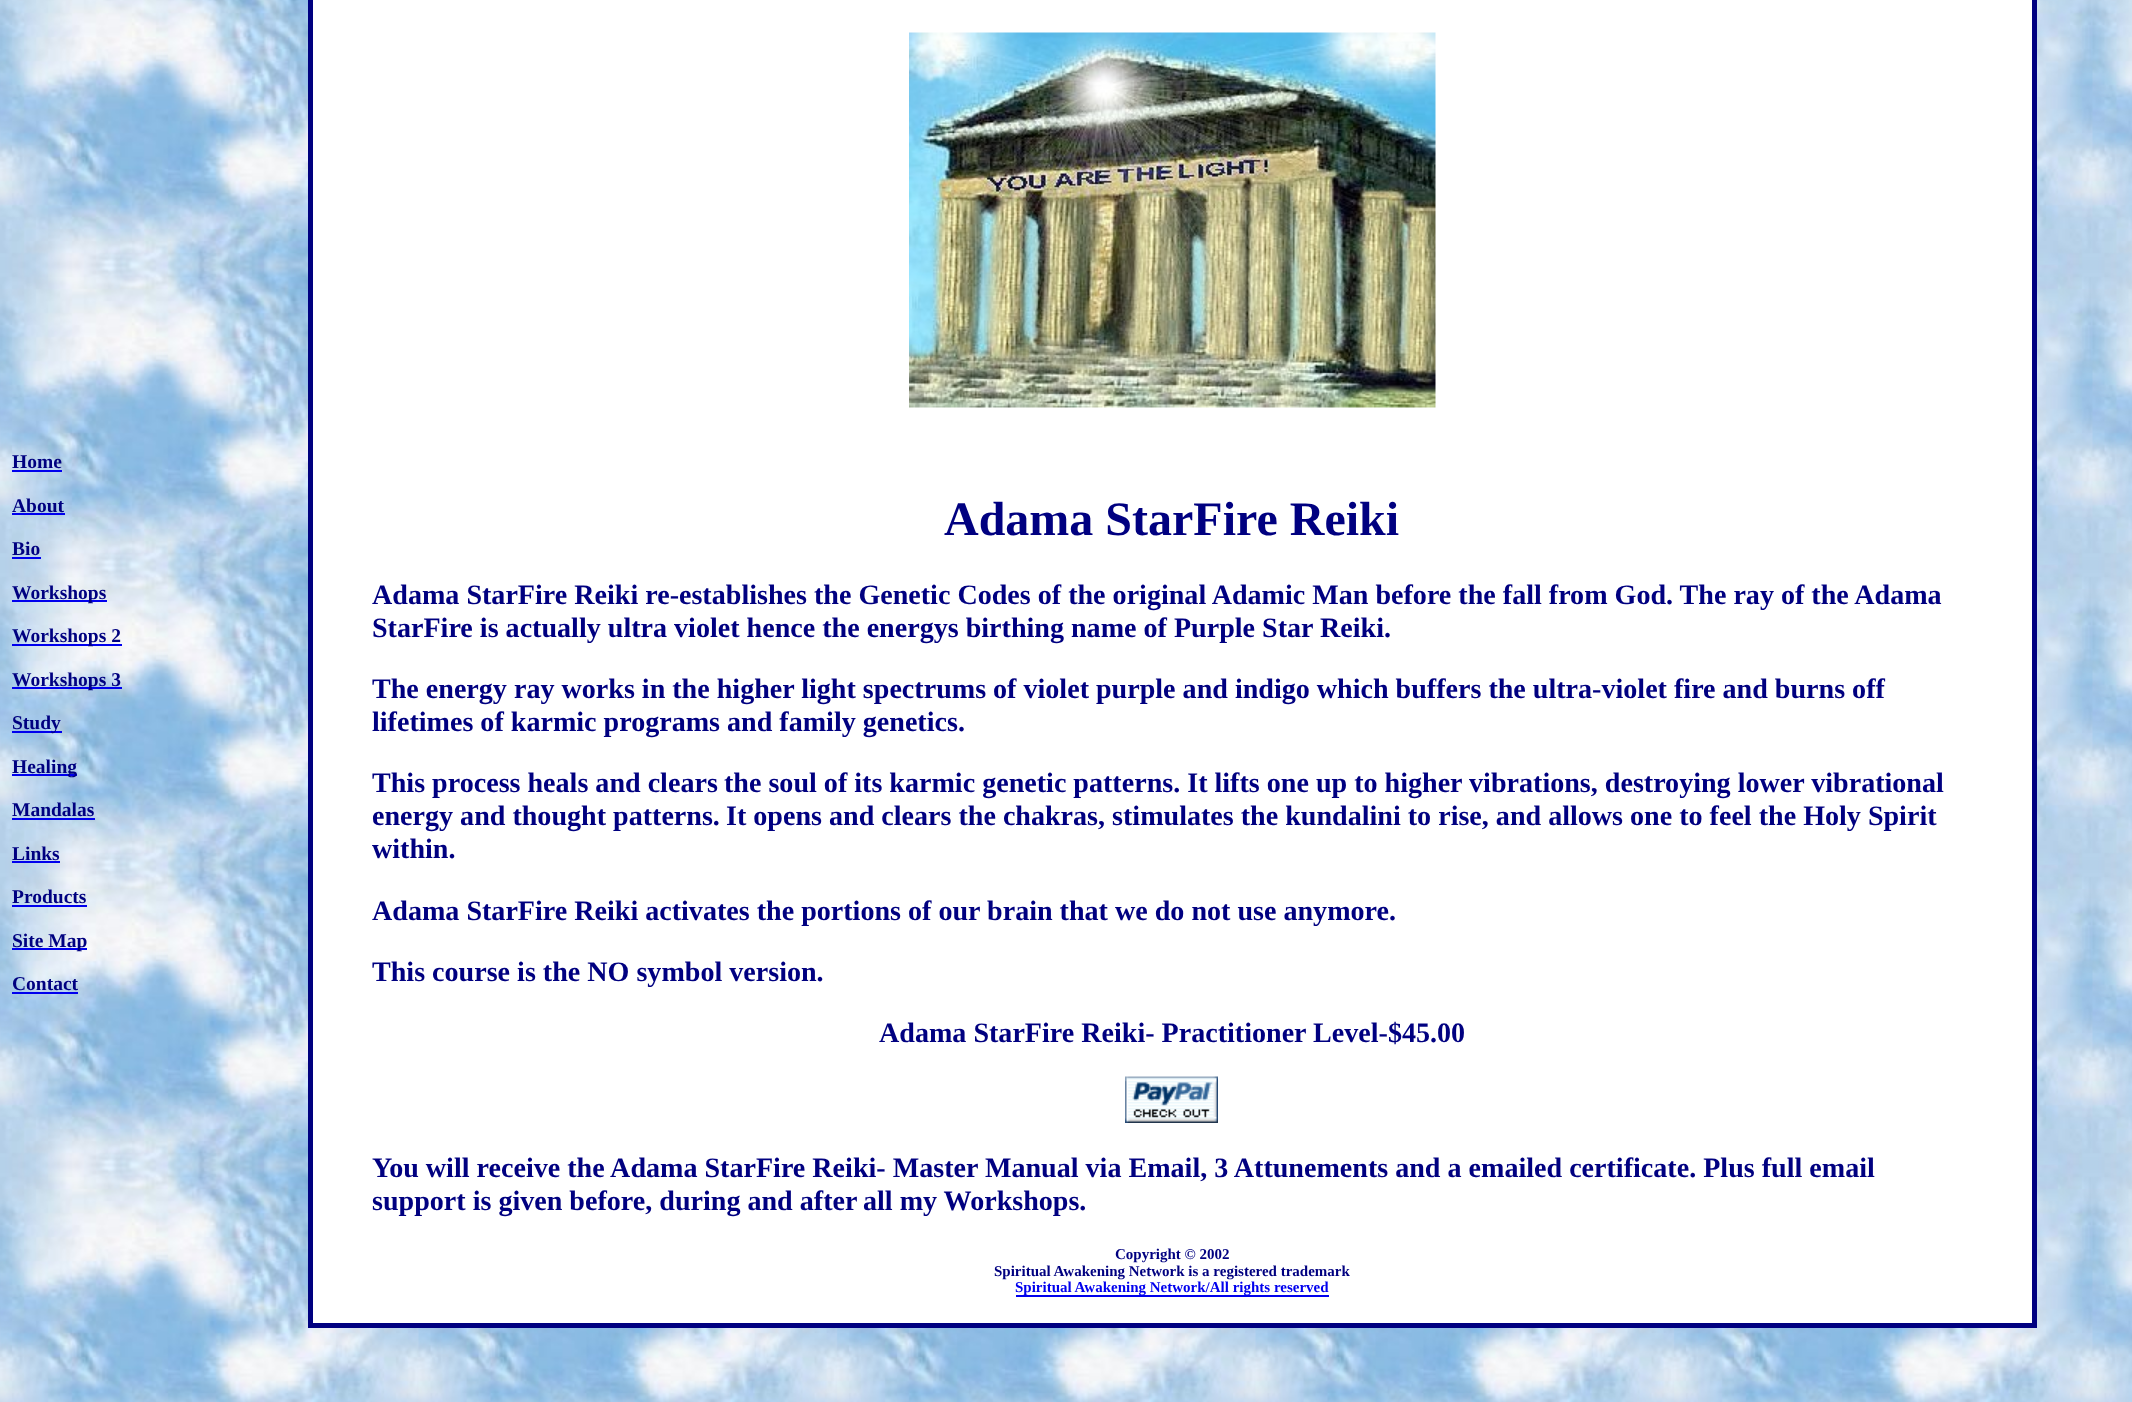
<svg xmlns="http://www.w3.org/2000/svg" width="2132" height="1402">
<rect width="100%" height="100%" fill="#fff"/>
<image x="0" y="0" width="2132" height="1402" href="media/1.png"/>
<text x="12" y="468" style="font-family:Liberation Serif;font-size:19.5px;font-weight:bold;fill:#000080">Home</text>
<rect x="12" y="470" width="50" height="2" fill="#00e"/>
<text x="12" y="512" style="font-family:Liberation Serif;font-size:19.5px;font-weight:bold;fill:#000080">About</text>
<rect x="12" y="513" width="53" height="2" fill="#00e"/>
<text x="12" y="555" style="font-family:Liberation Serif;font-size:19.5px;font-weight:bold;fill:#000080">Bio</text>
<rect x="12" y="557" width="29" height="2" fill="#00e"/>
<rect x="12" y="600" width="95" height="2" fill="#00e"/>
<text x="12" y="599" style="font-family:Liberation Serif;font-size:19.5px;font-weight:bold;fill:#000080">Workshops</text>
<rect x="12" y="644" width="110" height="2" fill="#00e"/>
<text x="12" y="642" style="font-family:Liberation Serif;font-size:19.5px;font-weight:bold;fill:#000080">Workshops 2</text>
<rect x="12" y="687" width="110" height="2" fill="#00e"/>
<text x="12" y="686" style="font-family:Liberation Serif;font-size:19.5px;font-weight:bold;fill:#000080">Workshops 3</text>
<rect x="12" y="731" width="50" height="2" fill="#00e"/>
<text x="12" y="729" style="font-family:Liberation Serif;font-size:19.5px;font-weight:bold;fill:#000080">Study</text>
<rect x="12" y="774" width="65" height="2" fill="#00e"/>
<text x="12" y="773" style="font-family:Liberation Serif;font-size:19.5px;font-weight:bold;fill:#000080">Healing</text>
<text x="12" y="816" style="font-family:Liberation Serif;font-size:19.5px;font-weight:bold;fill:#000080">Mandalas</text>
<rect x="12" y="818" width="83" height="2" fill="#00e"/>
<text x="12" y="860" style="font-family:Liberation Serif;font-size:19.5px;font-weight:bold;fill:#000080">Links</text>
<rect x="12" y="861" width="48" height="2" fill="#00e"/>
<text x="12" y="903" style="font-family:Liberation Serif;font-size:19.5px;font-weight:bold;fill:#000080">Products</text>
<rect x="12" y="905" width="75" height="2" fill="#00e"/>
<rect x="12" y="948" width="75" height="2" fill="#00e"/>
<text x="12" y="947" style="font-family:Liberation Serif;font-size:19.5px;font-weight:bold;fill:#000080">Site Map</text>
<text x="12" y="990" style="font-family:Liberation Serif;font-size:19.5px;font-weight:bold;fill:#000080">Contact</text>
<rect x="12" y="992" width="66" height="2" fill="#00e"/>
<rect x="313" width="1719" height="1323" fill="#fff"/>
<rect x="309.5" y="-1.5" width="1726" height="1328" fill="none" stroke="#000080" stroke-width="3"/>
<rect x="312" y="-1" width="1721" height="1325" fill="none" stroke="#000080" stroke-width="2"/>
<image x="909" y="32" width="527" height="376" href="media/2.png"/>
<text x="944" y="535" style="font-family:Liberation Serif;font-size:48px;font-weight:bold;fill:#000080">Adama StarFire Reiki</text>
<text x="372" y="604" style="font-family:Liberation Serif;font-size:28.08px;font-weight:bold;fill:#000080">Adama StarFire Reiki re-establishes the Genetic Codes of the original Adamic Man before the fall from God. The ray of the Adama</text>
<text x="372" y="637" style="font-family:Liberation Serif;font-size:28.08px;font-weight:bold;fill:#000080">StarFire is actually ultra violet hence the energys birthing name of Purple Star Reiki.</text>
<text x="372" y="698" style="font-family:Liberation Serif;font-size:28.08px;font-weight:bold;fill:#000080">The energy ray works in the higher light spectrums of violet purple and indigo which buffers the ultra-violet fire and burns off</text>
<text x="372" y="731" style="font-family:Liberation Serif;font-size:28.08px;font-weight:bold;fill:#000080">lifetimes of karmic programs and family genetics.</text>
<text x="372" y="792" style="font-family:Liberation Serif;font-size:28.08px;font-weight:bold;fill:#000080">This process heals and clears</text>
<text x="724" y="792" style="font-family:Liberation Serif;font-size:28.08px;font-weight:bold;fill:#000080">the soul of its karmic genetic patterns. It lifts one up to higher vibrations, destroying lower vibrational</text>
<text x="372" y="825" style="font-family:Liberation Serif;font-size:28.08px;font-weight:bold;fill:#000080">energy and thought patterns.</text>
<text x="726" y="825" style="font-family:Liberation Serif;font-size:28.08px;font-weight:bold;fill:#000080">It opens and clears the chakras, stimulates the kundalini to rise, and allows one to feel the Holy Spirit</text>
<text x="372" y="858" style="font-family:Liberation Serif;font-size:28.08px;font-weight:bold;fill:#000080">within.</text>
<text x="372" y="920" style="font-family:Liberation Serif;font-size:28.08px;font-weight:bold;fill:#000080">Adama StarFire Reiki activates the portions of our brain that we do not use anymore.</text>
<text x="372" y="981" style="font-family:Liberation Serif;font-size:28.08px;font-weight:bold;fill:#000080">This course is the NO symbol version.</text>
<text x="879" y="1042" style="font-family:Liberation Serif;font-size:28.08px;font-weight:bold;fill:#000080">Adama StarFire Reiki- Practitioner Level-$45.00</text>
<image x="1125" y="1076" width="93" height="47" href="media/3.png"/>
<text x="372" y="1177" style="font-family:Liberation Serif;font-size:28.08px;font-weight:bold;fill:#000080">You will receive the Adama StarFire Reiki- Master Manual via Email, 3 Attunements and a emailed certificate. Plus full email</text>
<text x="372" y="1210" style="font-family:Liberation Serif;font-size:28.08px;font-weight:bold;fill:#000080">support is given before, during and after</text>
<text x="863" y="1210" style="font-family:Liberation Serif;font-size:28.08px;font-weight:bold;fill:#000080">all my Workshops.</text>
<text x="1115" y="1259" style="font-family:Liberation Serif;font-size:15px;font-weight:bold;fill:#000080">Copyright © 2002</text>
<text x="994" y="1276" style="font-family:Liberation Serif;font-size:15px;font-weight:bold;fill:#000080">Spiritual Awakening Network is a registered trademark</text>
<rect x="1016" y="1295" width="313" height="2" fill="#00e"/>
<text x="1015" y="1292" style="font-family:Liberation Serif;font-size:15px;font-weight:bold;fill:#00e">Spiritual Awakening Network/All rights reserved</text>
</svg>
